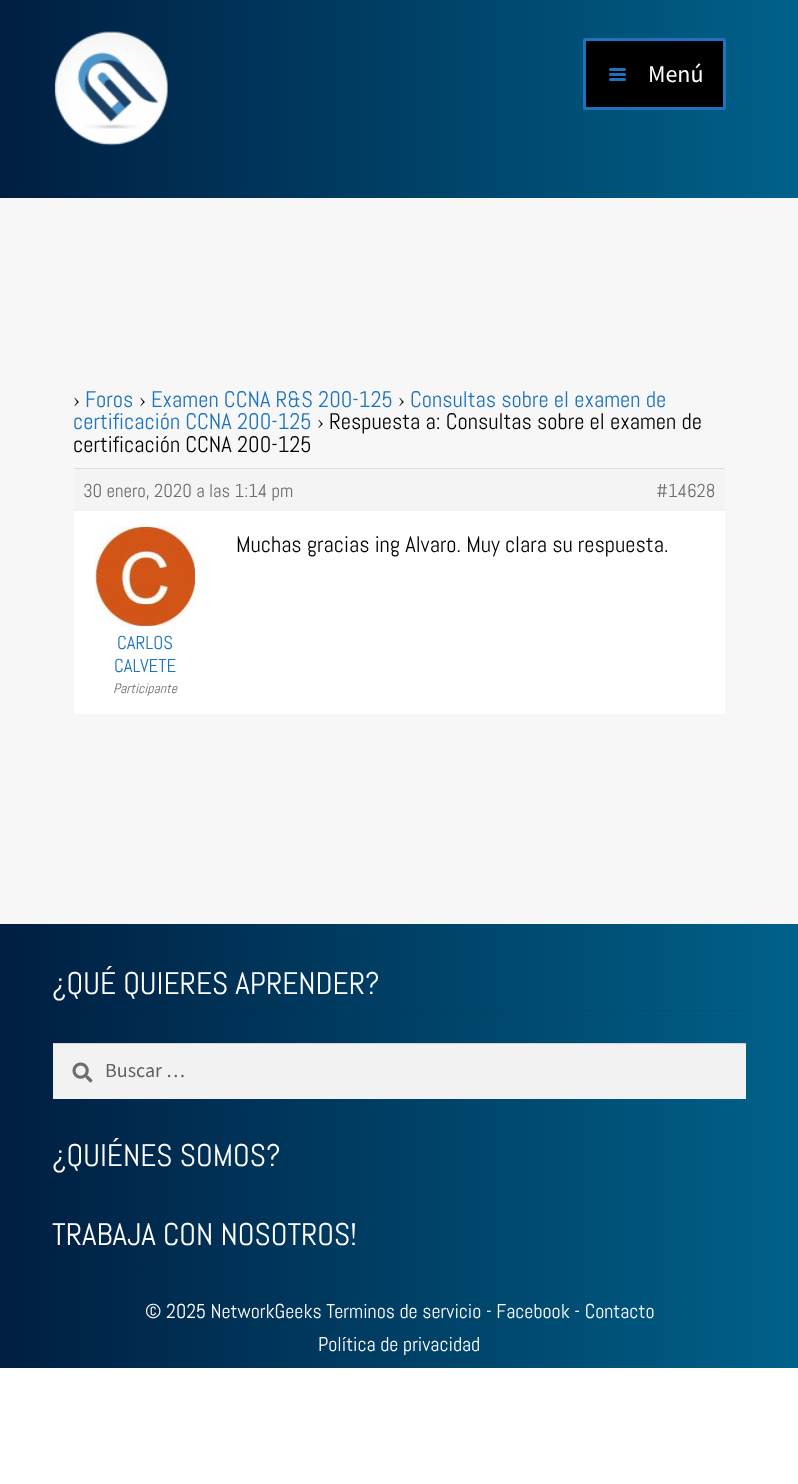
<svg xmlns="http://www.w3.org/2000/svg" width="798" height="1484">
<defs>
<linearGradient id="g1" gradientUnits="userSpaceOnUse" x1="0" y1="98" x2="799" y2="98"><stop offset="0" stop-color="#001e41"/><stop offset="1" stop-color="#00618a"/></linearGradient>
<linearGradient id="g2" gradientUnits="userSpaceOnUse" x1="0" y1="1146" x2="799" y2="1146"><stop offset="0" stop-color="#001e41"/><stop offset="1" stop-color="#00618a"/></linearGradient>
<linearGradient id="g3" gradientUnits="userSpaceOnUse" x1="0" y1="1146" x2="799" y2="1146"><stop offset="0" stop-color="#001d3e"/><stop offset="1" stop-color="#005c83"/></linearGradient>
</defs>
<rect width="100%" height="100%" fill="#fff"/>
<rect y="198" width="798" height="726" fill="#f7f7f7"/>
<rect width="798" height="198" fill="url(#g1)"/>
<image x="54" y="31" width="114" height="115" href="media/1.png"/>
<rect x="584.5" y="39.5" width="140" height="69" rx="1" fill="#000" stroke="#1e73be" stroke-width="3"/>
<rect x="609" y="68" width="17" height="3" rx="1.5" fill="#1e73be"/>
<rect x="609" y="73" width="17" height="3" rx="1.5" fill="#1e73be"/>
<text x="648" y="82" style="font-family:Source Sans Pro;font-size:24px;fill:#fff">Menú</text>
<rect x="609" y="78" width="17" height="3" rx="1.5" fill="#1e73be"/>
<text x="73" y="407" style="font-family:Abel;font-size:22.5px;fill:#000">›</text>
<text x="85" y="407" style="font-family:Abel;font-size:22.5px;fill:#1e73be">Foros</text>
<text x="139" y="407" style="font-family:Abel;font-size:22.5px;fill:#000">›</text>
<text x="151" y="407" style="font-family:Abel;font-size:22.5px;fill:#1e73be">Examen CCNA R&amp;S 200-125</text>
<text x="398" y="407" style="font-family:Abel;font-size:22.5px;fill:#000">›</text>
<text x="410" y="407" style="font-family:Abel;font-size:22.5px;fill:#1e73be">Consultas sobre el examen de</text>
<text x="73" y="429" style="font-family:Abel;font-size:22.5px;fill:#1e73be">certificación CCNA 200-125</text>
<text x="317" y="429" style="font-family:Abel;font-size:22.5px;fill:#000">› Respuesta a: Consultas sobre el examen de</text>
<text x="73" y="452" style="font-family:Abel;font-size:22.5px;fill:#000">certificación CCNA 200-125</text>
<rect x="74" y="469" width="651" height="42" fill="#f4f4f4"/>
<rect x="74" y="468" width="651" height="1" fill="#ddd"/>
<text x="83" y="497" style="font-family:Abel;font-size:18.75px;fill:#6d6d6d">30 enero, 2020 a las 1:14 pm</text>
<text x="656" y="497" style="font-family:Abel;font-size:18.75px;fill:#6d6d6d">#14628</text>
<rect x="74" y="511" width="651" height="203" fill="#fff"/>
<text x="236" y="552" style="font-family:Abel;font-size:22.5px;fill:#000">Muchas gracias ing Alvaro. Muy clara su respuesta.</text>
<image x="95" y="526" width="100" height="101" href="media/2.png"/>
<text x="117" y="649" style="font-family:Abel;font-size:18.75px;fill:#1e73be">CARLOS</text>
<text x="114" y="672" style="font-family:Abel;font-size:18.75px;fill:#1e73be">CALVETE</text>
<text x="113" y="693" style="font-family:Abel;font-size:13.75px;font-style:italic;fill:#6d6d6d">Participante</text>
<rect y="924" width="798" height="444" fill="url(#g2)"/>
<rect x="53" y="1010" width="693" height="1" fill="url(#g3)"/>
<text x="52" y="994" style="font-family:Abel;font-size:31.25px;fill:#fff">¿QUÉ QUIERES APRENDER?</text>
<rect x="53" y="1044" width="693" height="55" fill="#f2f2f2"/>
<image x="72" y="1062" width="21" height="21" href="media/3.png"/>
<rect x="53" y="1043" width="693" height="1" fill="#d4d4d4"/>
<text x="105" y="1077" style="font-family:Source Sans Pro;font-size:20px;fill:#616161">Buscar …</text>
<text x="52" y="1166" style="font-family:Abel;font-size:31.25px;fill:#fff">¿QUIÉNES SOMOS?</text>
<text x="52" y="1245" style="font-family:Abel;font-size:31.25px;fill:#fff">TRABAJA CON NOSOTROS!</text>
<text x="145" y="1318" style="font-family:Abel;font-size:20px;fill:#fff">© 2025 NetworkGeeks Terminos de servicio - Facebook - Contacto</text>
<text x="318" y="1351" style="font-family:Abel;font-size:20px;fill:#fff">Política de privacidad</text>
</svg>
